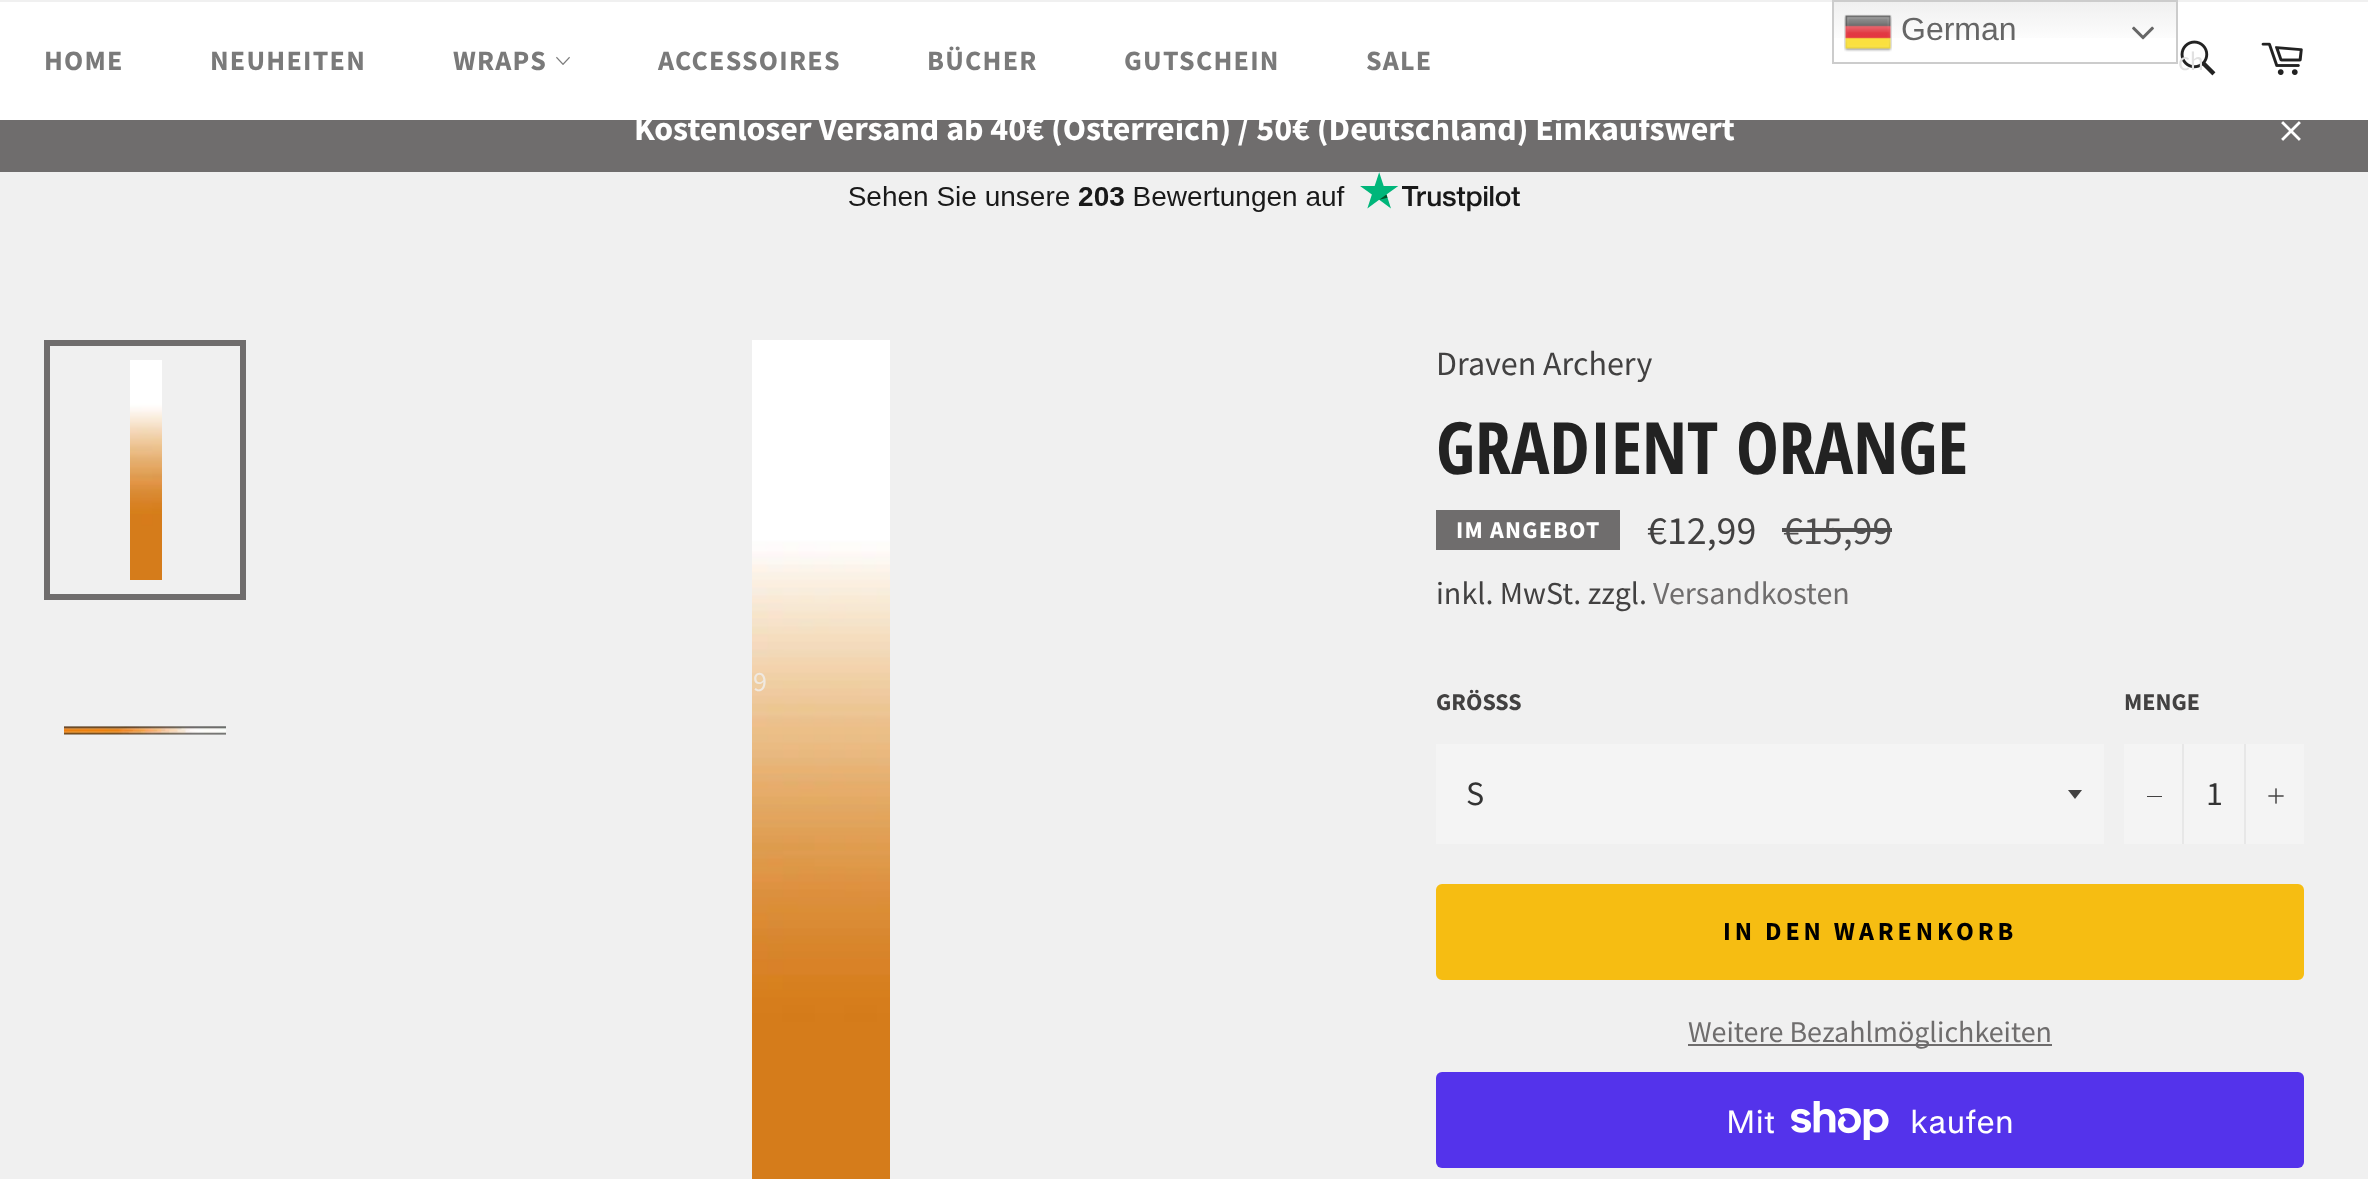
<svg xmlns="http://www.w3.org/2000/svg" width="2368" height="1179">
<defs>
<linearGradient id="g1" gradientUnits="userSpaceOnUse" x1="2005" y1="0" x2="2005" y2="64"><stop offset="0" stop-color="#efefef"/><stop offset="0.7" stop-color="#fff"/></linearGradient>
</defs>
<rect width="100%" height="100%" fill="#f0f0f0"/>
<rect y="2" width="2368" height="118" fill="#fff"/>
<rect x="1834" y="2" width="342" height="36" fill="url(#g1)"/>
<rect x="1833" y="1" width="344" height="62" fill="none" stroke="#ccc" stroke-width="2"/>
<image x="1844" y="14" width="48" height="38" href="media/1.png"/>
<text x="1901" y="40" style="font-family:Liberation Sans;font-size:32px;fill:#666">German</text>
<image x="2132" y="26" width="22" height="14" href="media/2.png"/>
<text x="44" y="70" style="font-family:Source Sans Pro;font-size:28px;font-weight:bold;letter-spacing:1.25px;fill:#7a7a7a">HOME</text>
<text x="210" y="70" style="font-family:Source Sans Pro;font-size:28px;font-weight:bold;letter-spacing:1.25px;fill:#7a7a7a">NEUHEITEN</text>
<text x="453" y="70" style="font-family:Source Sans Pro;font-size:28px;font-weight:bold;letter-spacing:1.25px;fill:#7a7a7a">WRAPS</text>
<image x="556" y="56" width="14" height="9" href="media/3.png"/>
<image x="752" y="340" width="138" height="839" href="media/10.png"/>
<text x="753" y="691" style="font-family:Source Sans Pro;font-size:28px;fill:#f0e9e0">9</text>
<text x="927" y="70" style="font-family:Source Sans Pro;font-size:28px;font-weight:bold;letter-spacing:1.25px;fill:#7a7a7a">BÜCHER</text>
<text x="658" y="70" style="font-family:Source Sans Pro;font-size:28px;font-weight:bold;letter-spacing:1.25px;fill:#7a7a7a">ACCESSOIRES</text>
<text x="1124" y="70" style="font-family:Source Sans Pro;font-size:28px;font-weight:bold;letter-spacing:1.25px;fill:#7a7a7a">GUTSCHEIN</text>
<text x="1366" y="70" style="font-family:Source Sans Pro;font-size:28px;font-weight:bold;letter-spacing:1.25px;fill:#7a7a7a">SALE</text>
<image x="2180" y="40" width="36" height="36" href="media/4.png"/>
<text x="2178" y="70" style="font-family:Source Sans Pro;font-size:26px;fill:#e1e1e1">ch</text>
<image x="2261" y="42" width="42" height="33" href="media/5.png"/>
<rect y="120" width="2368" height="52" fill="#6f6d6d"/>
<text x="634" y="140" style="font-family:Source Sans Pro;font-size:34px;font-weight:bold;fill:#fff">Kostenloser Versand ab 40€ (Österreich) / 50€ (Deutschland) Einkaufswert</text>
<image x="2281" y="121" width="20" height="20" href="media/6.png"/>
<image x="849" y="172" width="671" height="40" href="media/7.png"/>
<image x="130" y="360" width="32" height="220" href="media/8.png"/>
<rect x="47" y="343" width="196" height="254" fill="none" stroke="#6f6d6d" stroke-width="6"/>
<image x="64" y="726" width="162" height="9" href="media/9.png"/>
<text x="1436" y="375" style="font-family:Source Sans Pro;font-size:34px;fill:#424141">Draven Archery</text>
<text x="1436" y="474" style="font-family:Open Sans Condensed;font-size:72px;font-weight:bold;fill:#222">GRADIENT ORANGE</text>
<rect x="1436" y="510" width="184" height="40" fill="#6f6d6d"/>
<text x="1456" y="538" style="font-family:Source Sans Pro;font-size:24px;font-weight:bold;letter-spacing:1.25px;fill:#fff">IM ANGEBOT</text>
<text x="1647" y="544" style="font-family:Source Sans Pro;font-size:40px;fill:#424141">€12,99</text>
<text x="1783" y="544" style="font-family:Source Sans Pro;font-size:40px;fill:#4f4e4e">€15,99</text>
<rect x="1782" y="528" width="110" height="4" fill="#4f4e4e"/>
<text x="1436" y="604" style="font-family:Source Sans Pro;font-size:32px;fill:#424141">inkl. MwSt. zzgl.</text>
<text x="1653" y="604" style="font-family:Source Sans Pro;font-size:32px;fill:#6f6d6d">Versandkosten</text>
<text x="1436" y="710" style="font-family:Source Sans Pro;font-size:24px;font-weight:bold;fill:#424141">GRÖSSS</text>
<rect x="1436" y="744" width="668" height="100" fill="#f4f4f4"/>
<path d="M2068 790l7 9l7-9z" fill="#424141"/>
<text x="1466" y="805" style="font-family:Source Sans Pro;font-size:34px;fill:#333">S</text>
<text x="2124" y="710" style="font-family:Source Sans Pro;font-size:24px;font-weight:bold;fill:#424141">MENGE</text>
<rect x="2124" y="744" width="180" height="100" fill="#f4f4f4"/>
<rect x="2182" y="744" width="2" height="100" fill="#e7e7e7"/>
<rect x="2147" y="796" width="15" height="1" fill="#424141"/>
<text x="2206" y="805" style="font-family:Source Sans Pro;font-size:34px;fill:#333">1</text>
<rect x="2244" y="744" width="2" height="100" fill="#e7e7e7"/>
<image x="2268" y="788" width="16" height="16" href="media/11.png"/>
<rect x="1437" y="885" width="866" height="94" rx="5" fill="#f6bd12" stroke="#f6bd12" stroke-width="2"/>
<text x="1723" y="940" style="font-family:Source Sans Pro;font-size:26px;font-weight:bold;letter-spacing:3.9px;fill:#000">IN DEN WARENKORB</text>
<rect x="1688" y="1044" width="364" height="2" fill="#6f6d6d"/>
<text x="1688" y="1042" style="font-family:Source Sans Pro;font-size:30px;fill:#6f6d6d">Weitere Bezahlmöglichkeiten</text>
<rect x="1436" y="1072" width="868" height="96" rx="6" fill="#5433eb"/>
<text x="1726" y="1133" style="font-family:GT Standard;font-size:32px;fill:#fff">Mit</text>
<image x="1791" y="1101" width="98" height="39" href="media/12.png"/>
<text x="1910" y="1133" style="font-family:GT Standard;font-size:32px;fill:#fff">kaufen</text>
</svg>
